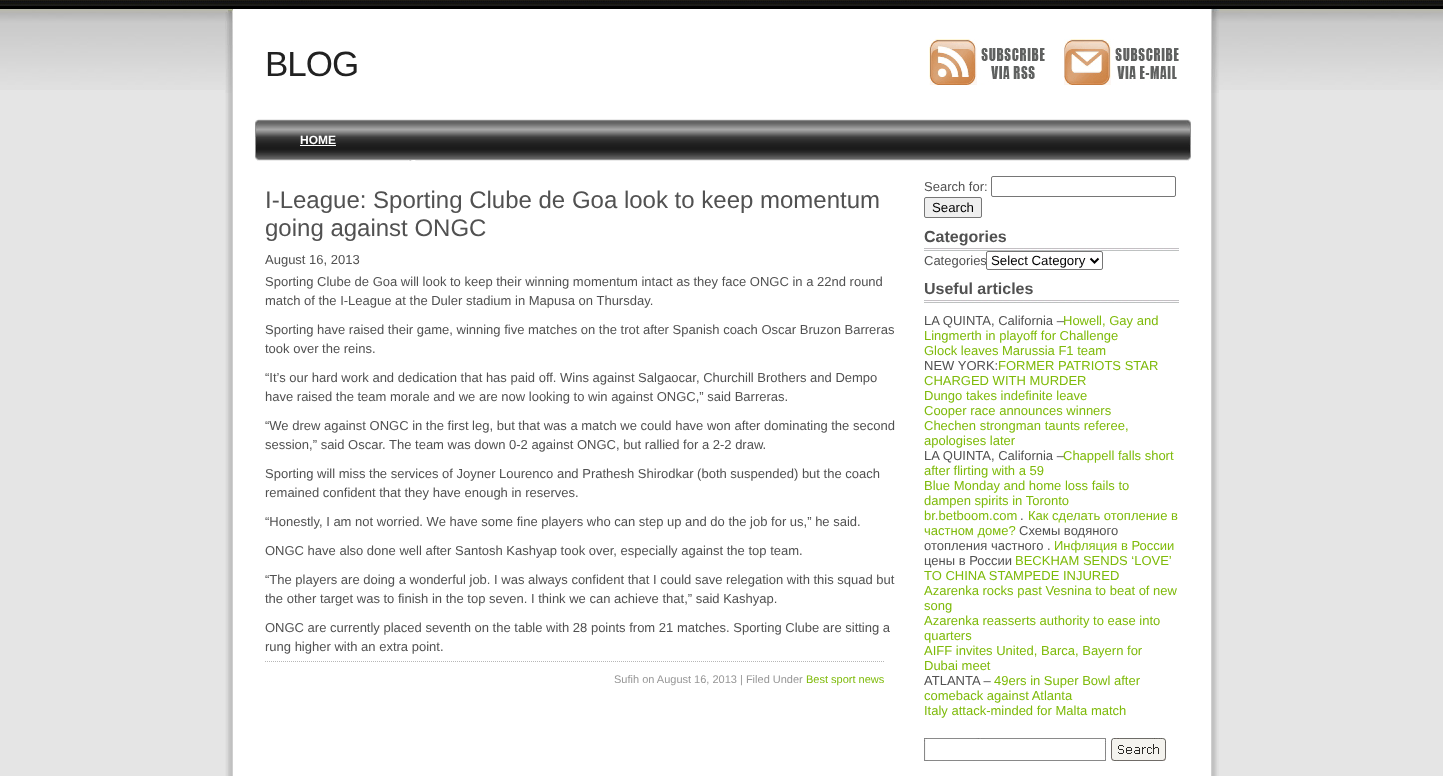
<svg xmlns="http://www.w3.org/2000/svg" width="1443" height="776">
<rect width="100%" height="100%" fill="#e5e5e5"/>
<image x="0" y="0" width="1443" height="90" href="media/1.png"/>
<image x="225" y="9" width="994" height="767" href="media/2.png"/>
<image x="225" y="9" width="994" height="84" href="media/3.png"/>
<text x="265" y="76" style="font-family:Liberation Sans;font-size:35px;letter-spacing:-1px;fill:#212121">BLOG</text>
<image x="929" y="39" width="116" height="46" href="media/4.png"/>
<image x="1064" y="39" width="115" height="46" href="media/5.png"/>
<image x="255" y="119" width="936" height="42" href="media/6.png"/>
<text x="300" y="144" style="font-family:Liberation Sans;font-size:12px;font-weight:bold;fill:#fff">HOME</text>
<rect x="300" y="145" width="36" height="1" fill="#fff"/>
<text x="265" y="208" style="font-family:Liberation Sans;font-size:24px;fill:#515151">I-League: Sporting Clube de Goa look to keep momentum</text>
<text x="265" y="236" style="font-family:Liberation Sans;font-size:24px;fill:#515151">going against ONGC</text>
<text x="265" y="264" style="font-family:Liberation Sans;font-size:13px;fill:#515151">August 16, 2013</text>
<text x="265" y="286" style="font-family:Liberation Sans;font-size:13px;fill:#515151">Sporting Clube de Goa will look to keep their winning momentum intact as they face ONGC in a 22nd round</text>
<text x="265" y="305" style="font-family:Liberation Sans;font-size:13px;fill:#515151">match of the I-League at the Duler stadium in Mapusa on Thursday.</text>
<text x="265" y="334" style="font-family:Liberation Sans;font-size:13px;fill:#515151">Sporting have raised their game, winning five matches on the trot after Spanish coach Oscar Bruzon Barreras</text>
<text x="265" y="353" style="font-family:Liberation Sans;font-size:13px;fill:#515151">took over the reins.</text>
<text x="265" y="382" style="font-family:Liberation Sans;font-size:13px;fill:#515151">“It’s our hard work and dedication that has paid off. Wins against Salgaocar, Churchill Brothers and Dempo</text>
<text x="265" y="401" style="font-family:Liberation Sans;font-size:13px;fill:#515151">have raised the team morale and we are now looking to win against ONGC,” said Barreras.</text>
<text x="265" y="430" style="font-family:Liberation Sans;font-size:13px;fill:#515151">“We drew against ONGC in the first leg, but that was a match we could have won after dominating the second</text>
<text x="265" y="449" style="font-family:Liberation Sans;font-size:13px;fill:#515151">session,” said Oscar. The team was down 0-2 against ONGC, but rallied for a 2-2 draw.</text>
<text x="265" y="478" style="font-family:Liberation Sans;font-size:13px;fill:#515151">Sporting will miss the services of Joyner Lourenco and Prathesh Shirodkar (both suspended) but the coach</text>
<text x="265" y="497" style="font-family:Liberation Sans;font-size:13px;fill:#515151">remained confident that they have enough in reserves.</text>
<text x="265" y="526" style="font-family:Liberation Sans;font-size:13px;fill:#515151">“Honestly, I am not worried. We have some fine players who can step up and do the job for us,” he said.</text>
<text x="265" y="555" style="font-family:Liberation Sans;font-size:13px;fill:#515151">ONGC have also done well after Santosh Kashyap took over, especially against the top team.</text>
<text x="265" y="584" style="font-family:Liberation Sans;font-size:13px;fill:#515151">“The players are doing a wonderful job. I was always confident that I could save relegation with this squad but</text>
<text x="265" y="603" style="font-family:Liberation Sans;font-size:13px;fill:#515151">the other target was to finish in the top seven. I think we can achieve that,” said Kashyap.</text>
<text x="265" y="632" style="font-family:Liberation Sans;font-size:13px;fill:#515151">ONGC are currently placed seventh on the table with 28 points from 21 matches. Sporting Clube are sitting a</text>
<text x="265" y="651" style="font-family:Liberation Sans;font-size:13px;fill:#515151">rung higher with an extra point.</text>
<path d="M265 661.5h620" fill="none" stroke="#b7b7b7" stroke-dasharray="1 1"/>
<text x="614" y="683" style="font-family:Liberation Sans;font-size:11px;fill:#979797">Sufih on August 16, 2013 | Filed Under</text>
<text x="806" y="683" style="font-family:Liberation Sans;font-size:11px;fill:#7eba09">Best sport news</text>
<text x="924" y="191" style="font-family:Liberation Sans;font-size:13px;fill:#515151">Search for:</text>
<rect x="991.5" y="176.5" width="184" height="20" rx="1.5" fill="none" stroke="#767676"/>
<rect x="924.5" y="197.5" width="57" height="20" rx="1.5" fill="#efefef" stroke="#767676"/>
<text x="932" y="212" style="font-family:Liberation Sans;font-size:13.25px;fill:#000">Search</text>
<image x="924" y="248" width="255" height="3" href="media/7.png"/>
<text x="924" y="242" style="font-family:Liberation Sans;font-size:16px;font-weight:bold;fill:#515151">Categories</text>
<text x="924" y="265" style="font-family:Liberation Sans;font-size:13px;fill:#515151">Categories</text>
<rect x="986.5" y="251.5" width="116" height="18" rx="1.5" fill="none" stroke="#767676"/>
<path d="M1090.5 258.5l4 4l4-4" fill="none" stroke="#000" stroke-width="2"/>
<text x="991" y="265" style="font-family:Liberation Sans;font-size:13.25px;fill:#000">Select Category</text>
<image x="924" y="300" width="255" height="3" href="media/7.png"/>
<text x="924" y="294" style="font-family:Liberation Sans;font-size:16px;font-weight:bold;fill:#515151">Useful articles</text>
<text x="924" y="325" style="font-family:Liberation Sans;font-size:13px;fill:#515151">LA QUINTA, California –</text>
<text x="1063" y="325" style="font-family:Liberation Sans;font-size:13px;fill:#7eba09">Howell, Gay and</text>
<text x="924" y="340" style="font-family:Liberation Sans;font-size:13px;fill:#7eba09">Lingmerth in playoff for Challenge</text>
<text x="924" y="355" style="font-family:Liberation Sans;font-size:13px;fill:#7eba09">Glock leaves Marussia F1 team</text>
<text x="924" y="370" style="font-family:Liberation Sans;font-size:13px;fill:#515151">NEW YORK:</text>
<text x="998" y="370" style="font-family:Liberation Sans;font-size:13px;fill:#7eba09">FORMER PATRIOTS STAR</text>
<text x="924" y="385" style="font-family:Liberation Sans;font-size:13px;fill:#7eba09">CHARGED WITH MURDER</text>
<text x="924" y="400" style="font-family:Liberation Sans;font-size:13px;fill:#7eba09">Dungo takes indefinite leave</text>
<text x="924" y="415" style="font-family:Liberation Sans;font-size:13px;fill:#7eba09">Cooper race announces winners</text>
<text x="924" y="430" style="font-family:Liberation Sans;font-size:13px;fill:#7eba09">Chechen strongman taunts referee,</text>
<text x="924" y="445" style="font-family:Liberation Sans;font-size:13px;fill:#7eba09">apologises later</text>
<text x="924" y="460" style="font-family:Liberation Sans;font-size:13px;fill:#515151">LA QUINTA, California –</text>
<text x="1063" y="460" style="font-family:Liberation Sans;font-size:13px;fill:#7eba09">Chappell falls short</text>
<text x="924" y="475" style="font-family:Liberation Sans;font-size:13px;fill:#7eba09">after flirting with a 59</text>
<text x="924" y="490" style="font-family:Liberation Sans;font-size:13px;fill:#7eba09">Blue Monday and home loss fails to</text>
<text x="924" y="505" style="font-family:Liberation Sans;font-size:13px;fill:#7eba09">dampen spirits in Toronto</text>
<text x="924" y="520" style="font-family:Liberation Sans;font-size:13px;fill:#7eba09">br.betboom.com</text>
<text x="1020" y="520" style="font-family:Liberation Sans;font-size:13px;fill:#515151">.</text>
<text x="1028" y="520" style="font-family:Liberation Sans;font-size:13px;fill:#7eba09">Как сделать отопление в</text>
<text x="924" y="535" style="font-family:Liberation Sans;font-size:13px;fill:#7eba09">частном доме?</text>
<text x="1019" y="535" style="font-family:Liberation Sans;font-size:13px;fill:#515151">Схемы водяного</text>
<text x="924" y="550" style="font-family:Liberation Sans;font-size:13px;fill:#515151">отопления частного .</text>
<text x="1054" y="550" style="font-family:Liberation Sans;font-size:13px;fill:#7eba09">Инфляция в России</text>
<text x="924" y="565" style="font-family:Liberation Sans;font-size:13px;fill:#515151">цены в России</text>
<text x="1015" y="565" style="font-family:Liberation Sans;font-size:13px;fill:#7eba09">BECKHAM SENDS ‘LOVE’</text>
<text x="924" y="580" style="font-family:Liberation Sans;font-size:13px;fill:#7eba09">TO CHINA STAMPEDE INJURED</text>
<text x="924" y="595" style="font-family:Liberation Sans;font-size:13px;fill:#7eba09">Azarenka rocks past Vesnina to beat of new</text>
<text x="924" y="610" style="font-family:Liberation Sans;font-size:13px;fill:#7eba09">song</text>
<text x="924" y="625" style="font-family:Liberation Sans;font-size:13px;fill:#7eba09">Azarenka reasserts authority to ease into</text>
<text x="924" y="640" style="font-family:Liberation Sans;font-size:13px;fill:#7eba09">quarters</text>
<text x="924" y="655" style="font-family:Liberation Sans;font-size:13px;fill:#7eba09">AIFF invites United, Barca, Bayern for</text>
<text x="924" y="670" style="font-family:Liberation Sans;font-size:13px;fill:#7eba09">Dubai meet</text>
<text x="924" y="685" style="font-family:Liberation Sans;font-size:13px;fill:#515151">ATLANTA –</text>
<text x="994" y="685" style="font-family:Liberation Sans;font-size:13px;fill:#7eba09">49ers in Super Bowl after</text>
<text x="924" y="700" style="font-family:Liberation Sans;font-size:13px;fill:#7eba09">comeback against Atlanta</text>
<text x="924" y="715" style="font-family:Liberation Sans;font-size:13px;fill:#7eba09">Italy attack-minded for Malta match</text>
<image x="924" y="738" width="182" height="23" href="media/8.png"/>
<image x="1111" y="738" width="55" height="23" href="media/9.png"/>
</svg>
